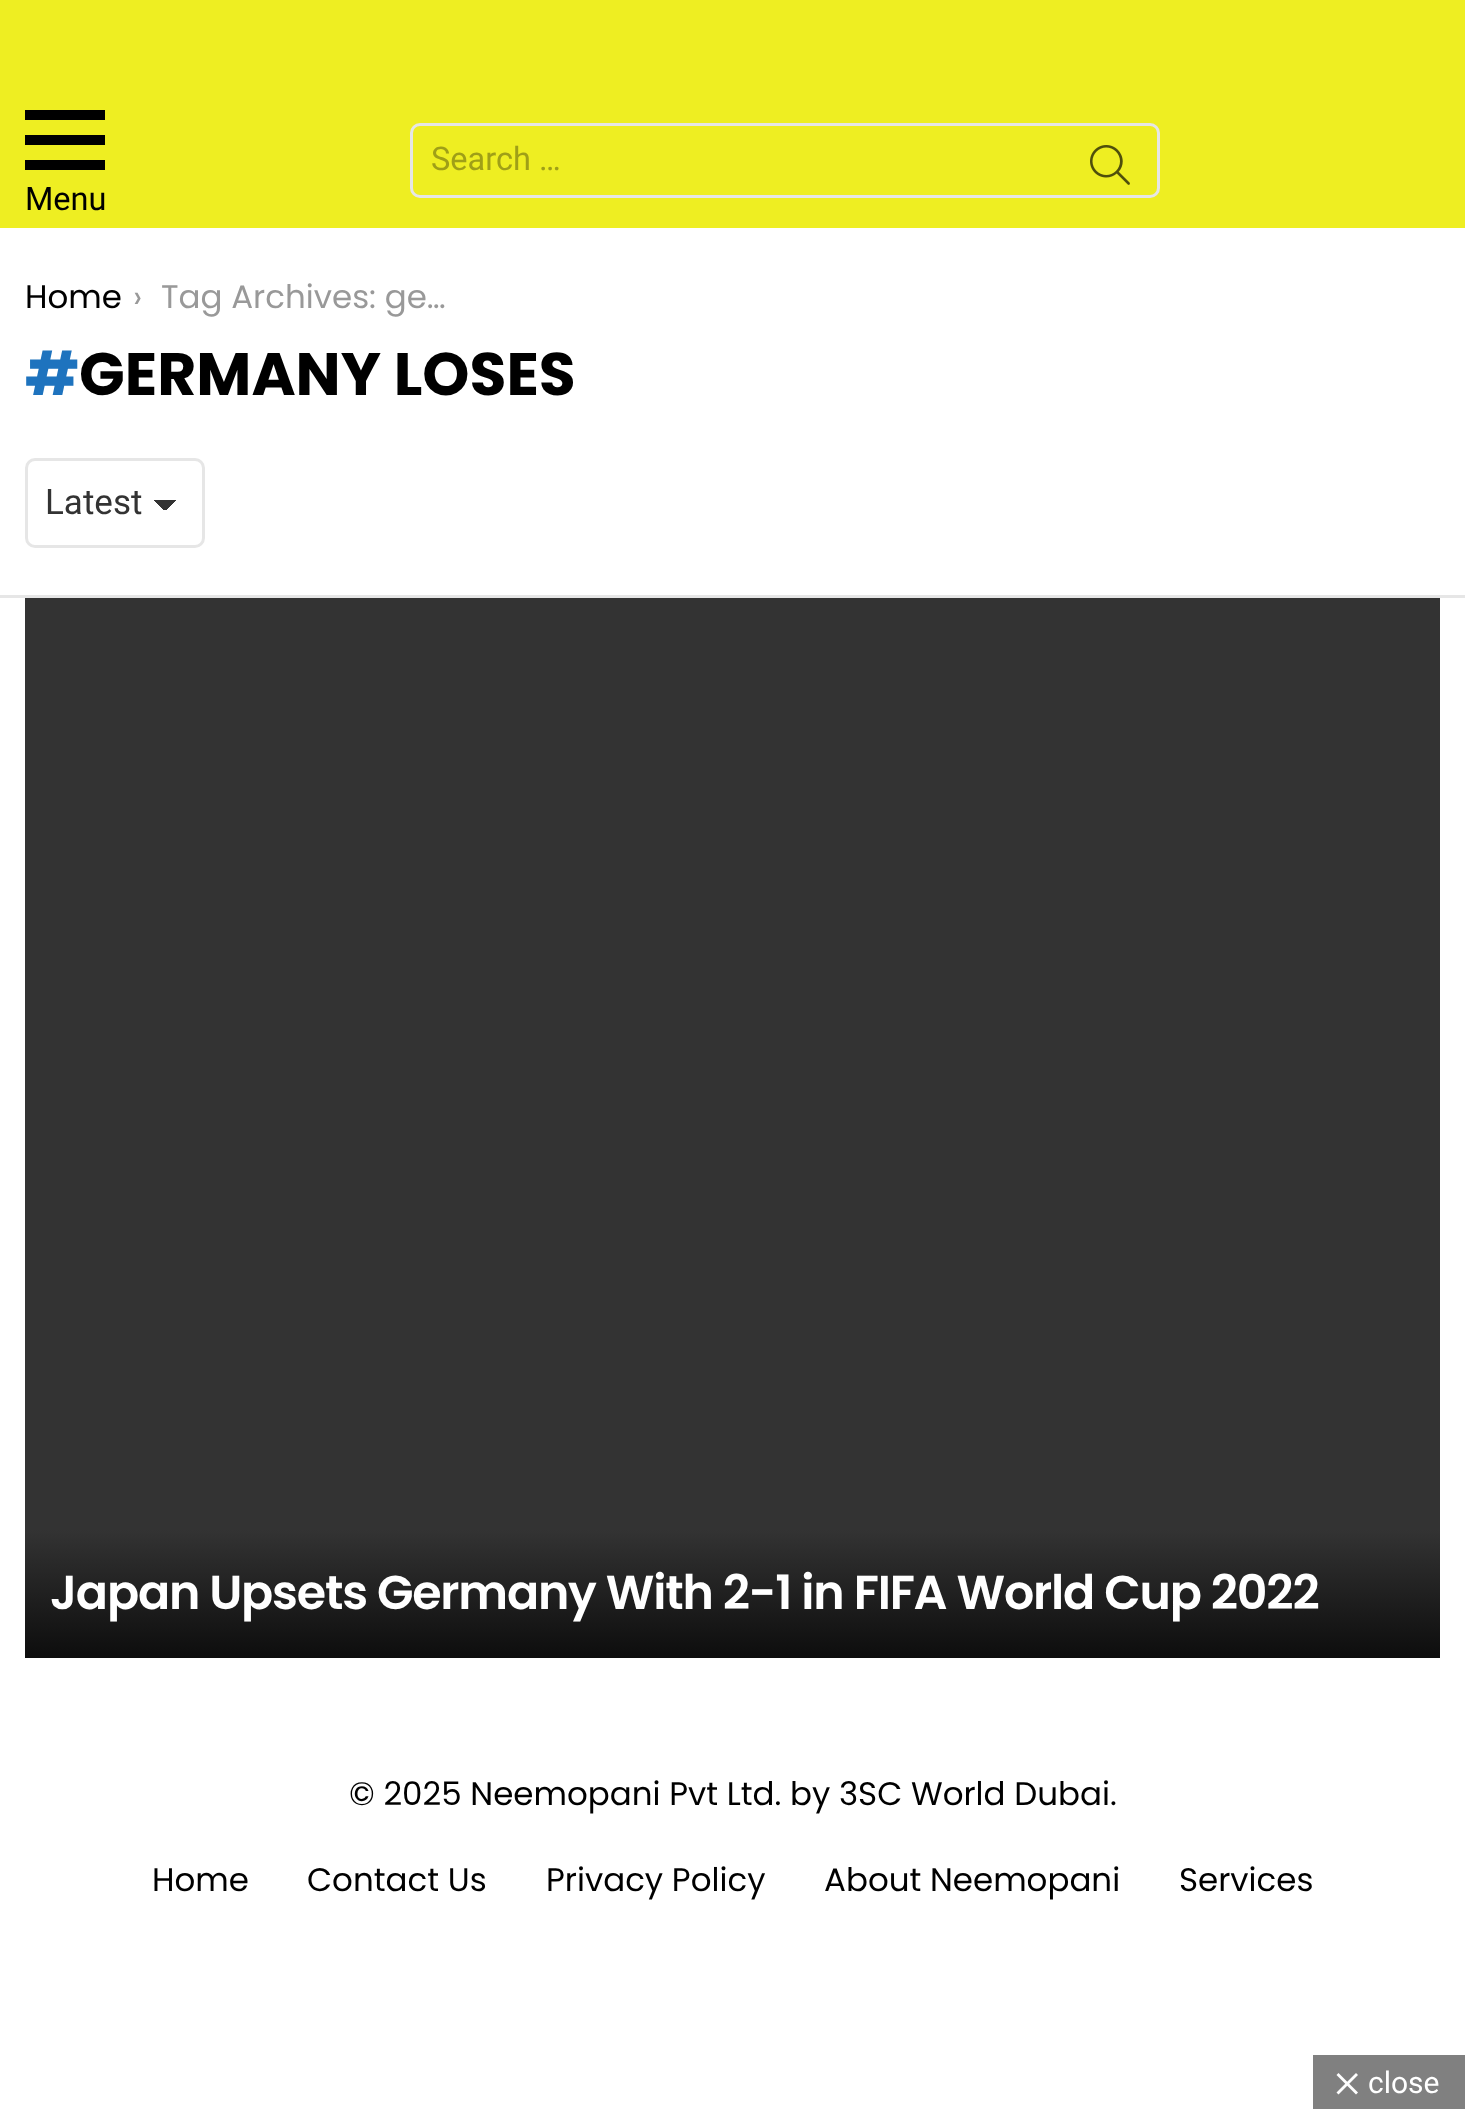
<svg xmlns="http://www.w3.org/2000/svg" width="1465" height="2109">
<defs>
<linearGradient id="g1" gradientUnits="userSpaceOnUse" x1="166" y1="499" x2="177" y2="511"><stop offset="0.5" stop-color="#333"/><stop offset="0.5" stop-color="#fff"/></linearGradient>
<linearGradient id="g2" gradientUnits="userSpaceOnUse" x1="153" y1="511" x2="164" y2="499"><stop offset="0.5" stop-color="#fff"/><stop offset="0.5" stop-color="#333"/></linearGradient>
<linearGradient id="g3" gradientUnits="userSpaceOnUse" x1="733" y1="1530" x2="733" y2="1658"><stop offset="0" stop-color="#333"/><stop offset="1" stop-color="#0d0d0d"/></linearGradient>
</defs>
<rect width="100%" height="100%" fill="#fff"/>
<rect width="1465" height="228" fill="#ee2"/>
<rect x="411.5" y="124.5" width="747" height="72" rx="8.5" fill="none" stroke="#e6e6e6" stroke-width="3"/>
<text x="431" y="170" style="font-family:Roboto;font-size:32.5px;fill:#9f9f17">Search …</text>
<image x="1090" y="145" width="40" height="40" href="media/1.png"/>
<path d="M25 110h80v10h-80zm0 25h80v10h-80zm0 25h80v10h-80z" fill="#000"/>
<text x="25" y="210" style="font-family:Roboto;font-size:32.5px;fill:#000">Menu</text>
<text x="25" y="308" style="font-family:Poppins;font-size:32.5px;fill:#000">Home</text>
<text x="133" y="308" style="font-family:Poppins;font-size:32.5px;fill:#999">›</text>
<text x="161" y="308" style="font-family:Poppins;font-size:32.5px;fill:#999">Tag Archives: ge…</text>
<text x="25" y="395" style="font-family:Poppins;font-size:60px;font-weight:bold;fill:#1e73be">#</text>
<text x="79" y="395" style="font-family:Poppins;font-size:60px;font-weight:bold;fill:#000">GERMANY LOSES</text>
<rect x="165" y="500" width="11" height="10" fill="url(#g1)"/>
<rect x="154" y="500" width="11" height="10" fill="url(#g2)"/>
<rect x="26.5" y="459.5" width="177" height="87" rx="8.5" fill="none" stroke="#e6e6e6" stroke-width="3"/>
<text x="45" y="514" style="font-family:Roboto;font-size:35px;fill:#333">Latest</text>
<rect y="595" width="1465" height="3" fill="#e6e6e6"/>
<rect x="25" y="598" width="1415" height="932" fill="#333"/>
<rect x="25" y="1530" width="1415" height="128" fill="url(#g3)"/>
<text x="50" y="1609" style="font-family:Poppins;font-size:47.5px;font-weight:600;letter-spacing:-1.2px;fill:#fff">Japan Upsets Germany With 2-1 in FIFA World Cup 2022</text>
<text x="349" y="1805" style="font-family:Poppins;font-size:32.5px;fill:#000">© 2025 Neemopani Pvt Ltd. by 3SC World Dubai.</text>
<text x="152" y="1891" style="font-family:Poppins;font-size:32.5px;fill:#000">Home</text>
<text x="307" y="1891" style="font-family:Poppins;font-size:32.5px;fill:#000">Contact Us</text>
<text x="546" y="1891" style="font-family:Poppins;font-size:32.5px;fill:#000">Privacy Policy</text>
<text x="824" y="1891" style="font-family:Poppins;font-size:32.5px;fill:#000">About Neemopani</text>
<text x="1179" y="1891" style="font-family:Poppins;font-size:32.5px;fill:#000">Services</text>
<rect x="1313" y="2055" width="152" height="54" fill="#808080"/>
<path d="M1338.5 2073l19.5 19.5l-2 2l-19.5-19.5z" fill="#fff"/>
<text x="1368" y="2093" style="font-family:Roboto;font-size:30px;fill:#fff">close</text>
<path d="M1356 2073l2 2l-19.5 19.5l-2-2z" fill="#fff"/>
</svg>
